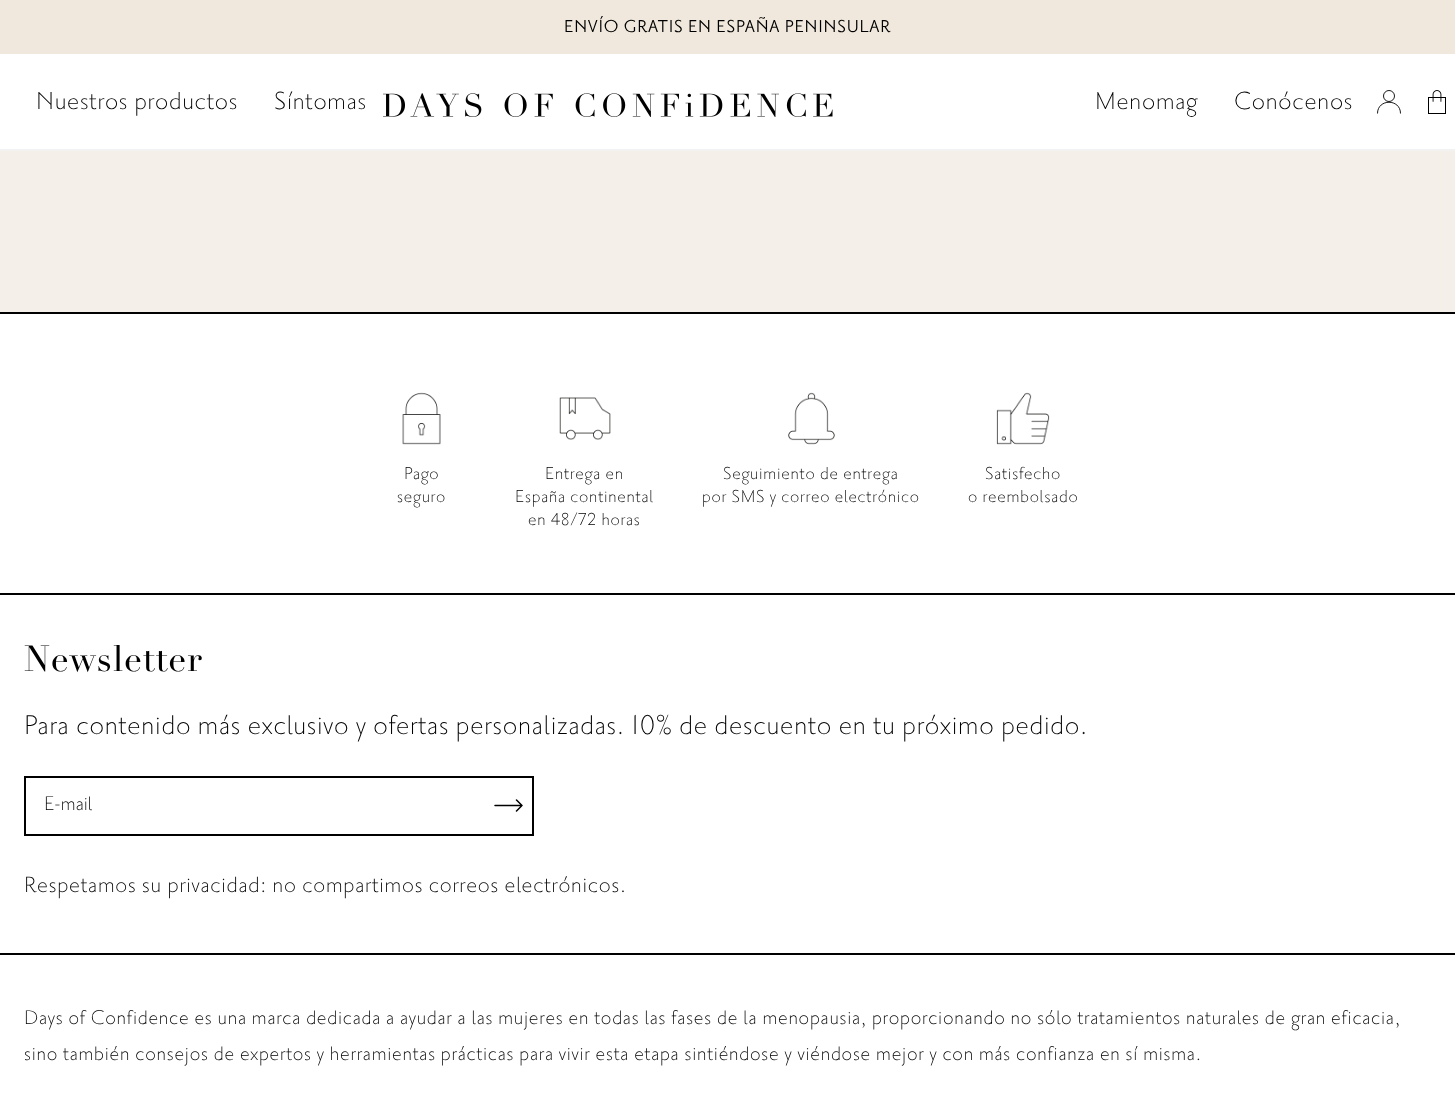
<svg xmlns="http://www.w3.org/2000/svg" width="1455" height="1115">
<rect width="100%" height="100%" fill="#fff"/>
<rect width="1455" height="54" fill="#f0e8dc"/>
<text x="564" y="32" style="font-family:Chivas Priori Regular;font-size:21px;letter-spacing:0.75px;fill:#000">ENVÍO GRATIS EN ESPAÑA PENINSULAR</text>
<text x="36" y="109" style="font-family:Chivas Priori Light;font-size:30px;font-weight:300;letter-spacing:0.75px;fill:#000">Nuestros productos</text>
<text x="274" y="109" style="font-family:Chivas Priori Light;font-size:30px;font-weight:300;letter-spacing:0.75px;fill:#000">Síntomas</text>
<image x="383" y="93" width="450" height="24" href="media/1.png"/>
<text x="1095" y="109" style="font-family:Chivas Priori Light;font-size:30px;font-weight:300;letter-spacing:0.75px;fill:#000">Menomag</text>
<text x="1234" y="109" style="font-family:Chivas Priori Light;font-size:30px;font-weight:300;letter-spacing:0.75px;fill:#000">Conócenos</text>
<circle cx="1389" cy="96" r="5.5" fill="none" stroke="#000" stroke-width="0.9"/>
<path d="M1377.5 113.5c0-15 23-15 23 0" fill="none" stroke="#000" stroke-width="0.9"/>
<image x="1428" y="90" width="18" height="24" href="media/2.png"/>
<rect y="149" width="1455" height="2" fill="#f2f2f2"/>
<rect y="151" width="1455" height="161" fill="#f4efe9"/>
<rect y="312" width="1455" height="2" fill="#000"/>
<image x="402" y="392" width="39" height="53" href="media/3.png"/>
<text x="404" y="479" style="font-family:Chivas Priori Light;font-size:21px;font-weight:300;letter-spacing:0.75px;fill:#000">Pago</text>
<text x="397" y="502" style="font-family:Chivas Priori Light;font-size:21px;font-weight:300;letter-spacing:0.75px;fill:#000">seguro</text>
<image x="559" y="397" width="52" height="43" href="media/4.png"/>
<text x="545" y="479" style="font-family:Chivas Priori Light;font-size:21px;font-weight:300;letter-spacing:0.75px;fill:#000">Entrega en</text>
<text x="515" y="502" style="font-family:Chivas Priori Light;font-size:21px;font-weight:300;letter-spacing:0.75px;fill:#000">España continental</text>
<text x="528" y="525" style="font-family:Chivas Priori Light;font-size:21px;font-weight:300;letter-spacing:0.75px;fill:#000">en 48/72 horas</text>
<image x="788" y="392" width="47" height="53" href="media/5.png"/>
<text x="723" y="479" style="font-family:Chivas Priori Light;font-size:21px;font-weight:300;letter-spacing:0.75px;fill:#000">Seguimiento de entrega</text>
<text x="702" y="502" style="font-family:Chivas Priori Light;font-size:21px;font-weight:300;letter-spacing:0.75px;fill:#000">por SMS y correo electrónico</text>
<image x="996" y="392" width="54" height="53" href="media/6.png"/>
<text x="985" y="479" style="font-family:Chivas Priori Light;font-size:21px;font-weight:300;letter-spacing:0.75px;fill:#000">Satisfecho</text>
<text x="968" y="502" style="font-family:Chivas Priori Light;font-size:21px;font-weight:300;letter-spacing:0.75px;fill:#000">o reembolsado</text>
<rect y="593" width="1455" height="2" fill="#000"/>
<text x="24" y="671" style="font-family:Didot;font-size:36px;letter-spacing:0.75px;fill:#000">Newsletter</text>
<text x="24" y="734" style="font-family:Chivas Priori Light;font-size:33px;font-weight:300;letter-spacing:0.75px;fill:#000">Para contenido más exclusivo y ofertas personalizadas. 10% de descuento en tu próximo pedido.</text>
<rect x="25" y="777" width="508" height="58" fill="none" stroke="#000" stroke-width="2"/>
<text x="44" y="810" style="font-family:Chivas Priori Light;font-size:24px;font-weight:300;fill:#000">E-mail</text>
<path d="M516.5 800l5.5 5.5m0 0l-5.5 5.5m5.5-5.5h-27" fill="none" stroke="#000" stroke-width="1.5" stroke-linecap="round" stroke-linejoin="round"/>
<text x="24" y="892" style="font-family:Chivas Priori Light;font-size:27px;font-weight:300;letter-spacing:0.75px;fill:#000">Respetamos su privacidad: no compartimos correos electrónicos.</text>
<rect y="953" width="1455" height="2" fill="#000"/>
<text x="24" y="1024" style="font-family:Chivas Priori Light;font-size:24px;font-weight:300;letter-spacing:0.75px;fill:#000">Days of Confidence es una marca dedicada a ayudar a las mujeres en todas las fases de la menopausia, proporcionando no sólo tratamientos naturales de gran eficacia,</text>
<text x="24" y="1060" style="font-family:Chivas Priori Light;font-size:24px;font-weight:300;letter-spacing:0.75px;fill:#000">sino también consejos de expertos y herramientas prácticas para vivir esta etapa sintiéndose y viéndose mejor y con más confianza en sí misma.</text>
</svg>
